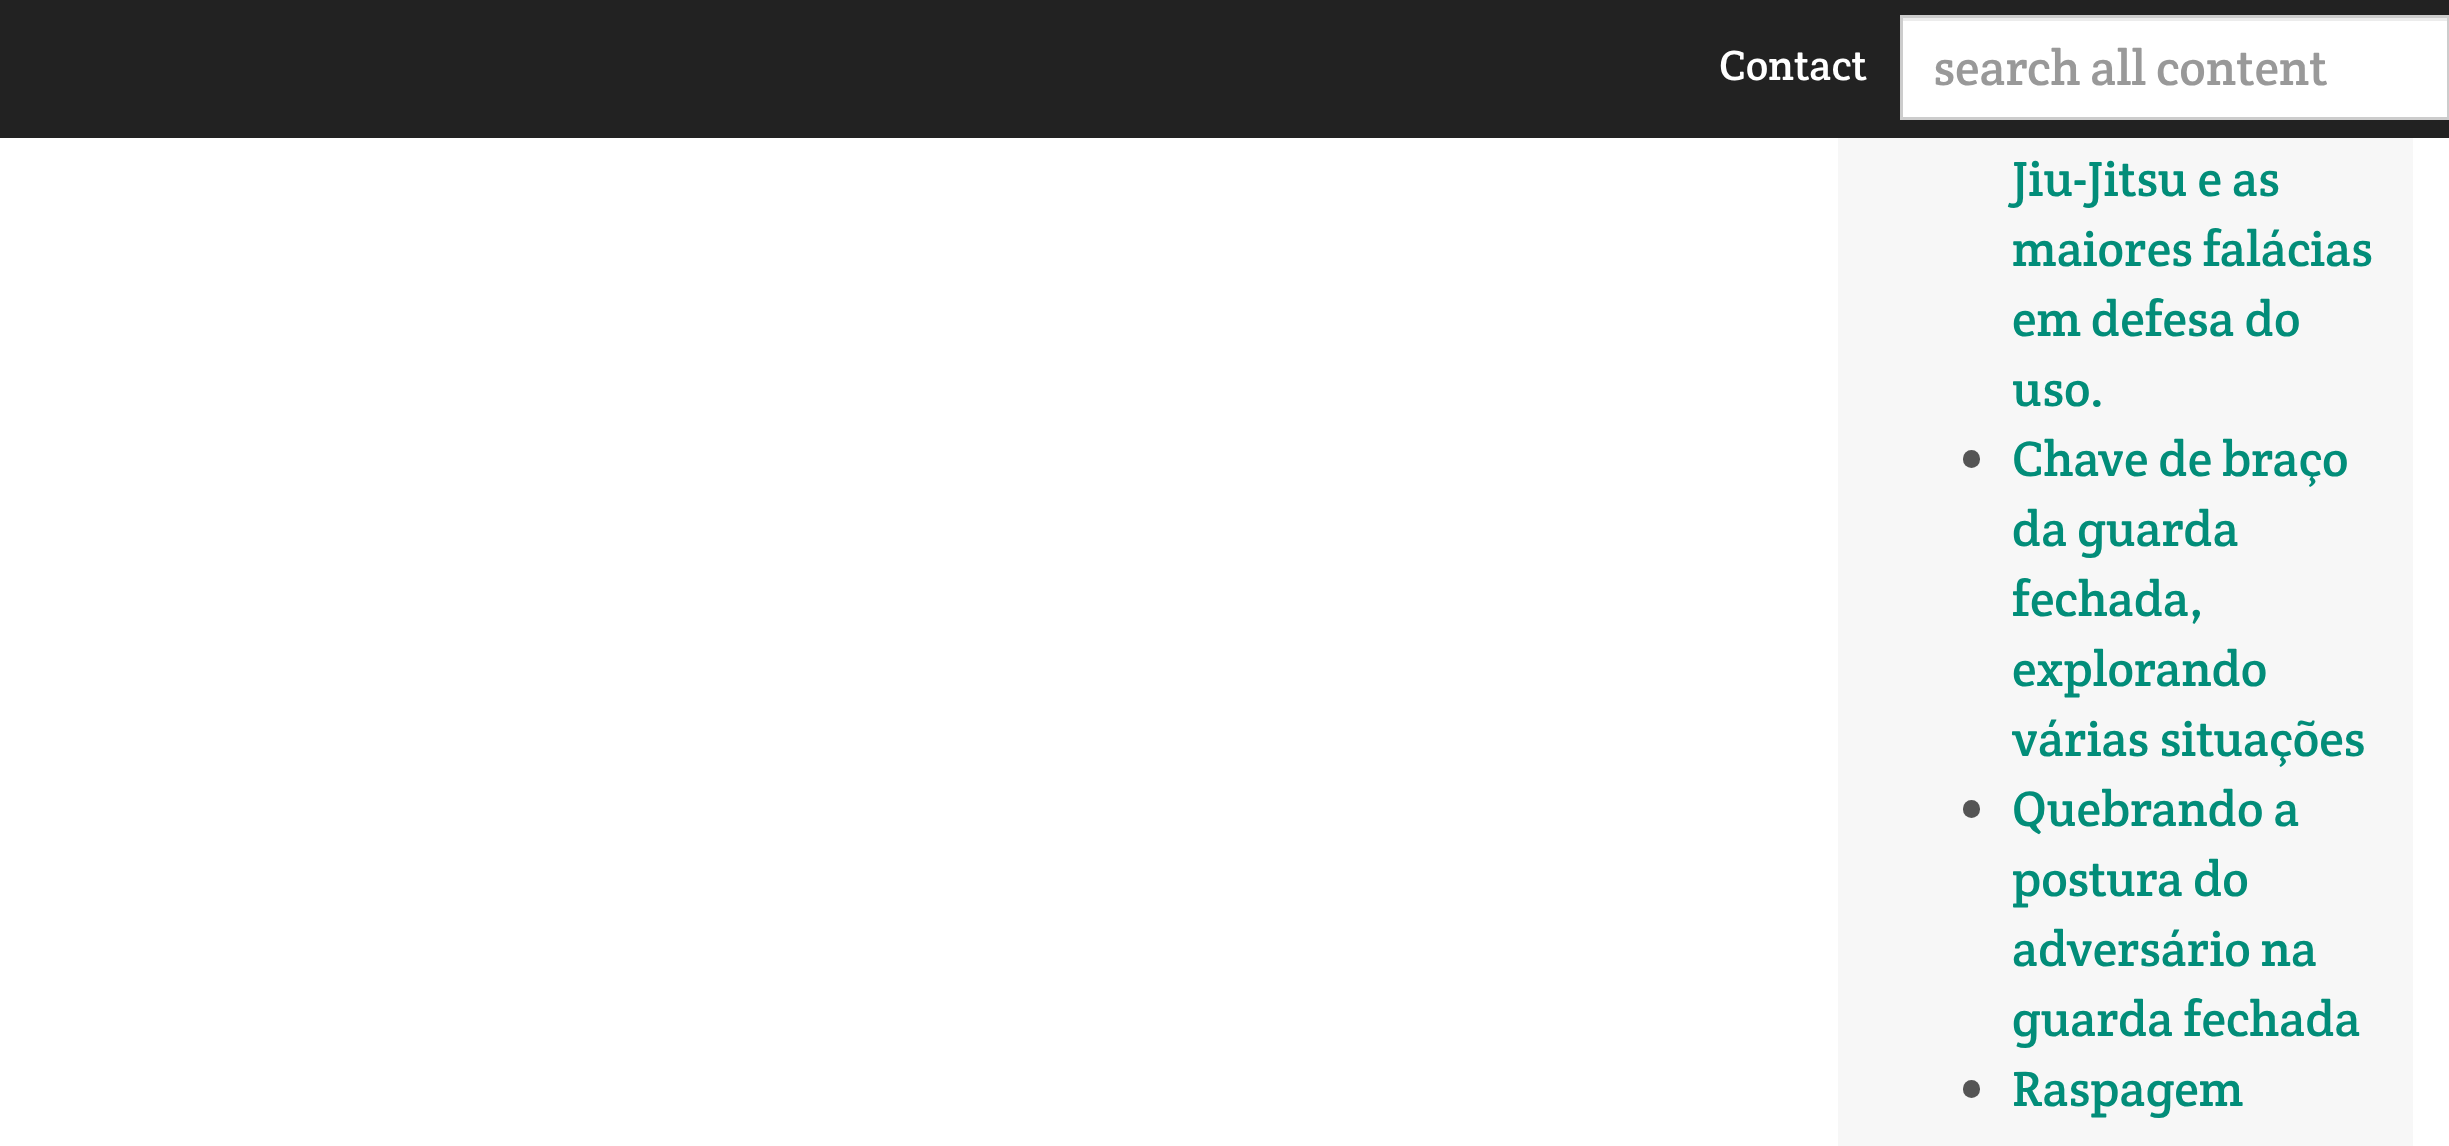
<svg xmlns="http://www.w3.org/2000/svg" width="2449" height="1146">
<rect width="100%" height="100%" fill="#fff"/>
<rect width="2449" height="138" fill="#222"/>
<text x="1719" y="80" style="font-family:Crete Round;font-size:42.5px;fill:#fff">Contact</text>
<rect x="1903" y="21" width="544" height="96" fill="#fff"/>
<rect x="1903" y="18" width="545" height="3" fill="#ececec"/>
<rect x="1901.5" y="16.5" width="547" height="102" fill="none" stroke="#ccc" stroke-width="3"/>
<text x="1933" y="85" style="font-family:Crete Round;font-size:50px;fill:#999">search all content</text>
<rect x="1838" y="138" width="575" height="1008" fill="#f7f7f7"/>
<text x="2012" y="196" style="font-family:Crete Round;font-size:50px;fill:#028d79">Jiu-Jitsu e as</text>
<text x="2012" y="266" style="font-family:Crete Round;font-size:50px;fill:#028d79">maiores falácias</text>
<text x="2012" y="336" style="font-family:Crete Round;font-size:50px;fill:#028d79">em defesa do</text>
<text x="2012" y="406" style="font-family:Crete Round;font-size:50px;fill:#028d79">uso.</text>
<rect x="1963" y="450" width="17" height="18" rx="8.5" fill="#555"/>
<text x="2012" y="476" style="font-family:Crete Round;font-size:50px;fill:#028d79">Chave de braço</text>
<text x="2012" y="546" style="font-family:Crete Round;font-size:50px;fill:#028d79">da guarda</text>
<text x="2012" y="616" style="font-family:Crete Round;font-size:50px;fill:#028d79">fechada,</text>
<text x="2012" y="686" style="font-family:Crete Round;font-size:50px;fill:#028d79">explorando</text>
<text x="2012" y="756" style="font-family:Crete Round;font-size:50px;fill:#028d79">várias situações</text>
<rect x="1963" y="800" width="17" height="18" rx="8.5" fill="#555"/>
<text x="2012" y="826" style="font-family:Crete Round;font-size:50px;fill:#028d79">Quebrando a</text>
<text x="2012" y="896" style="font-family:Crete Round;font-size:50px;fill:#028d79">postura do</text>
<text x="2012" y="966" style="font-family:Crete Round;font-size:50px;fill:#028d79">adversário na</text>
<text x="2012" y="1036" style="font-family:Crete Round;font-size:50px;fill:#028d79">guarda fechada</text>
<rect x="1963" y="1080" width="17" height="18" rx="8.5" fill="#555"/>
<text x="2012" y="1106" style="font-family:Crete Round;font-size:50px;fill:#028d79">Raspagem</text>
</svg>
